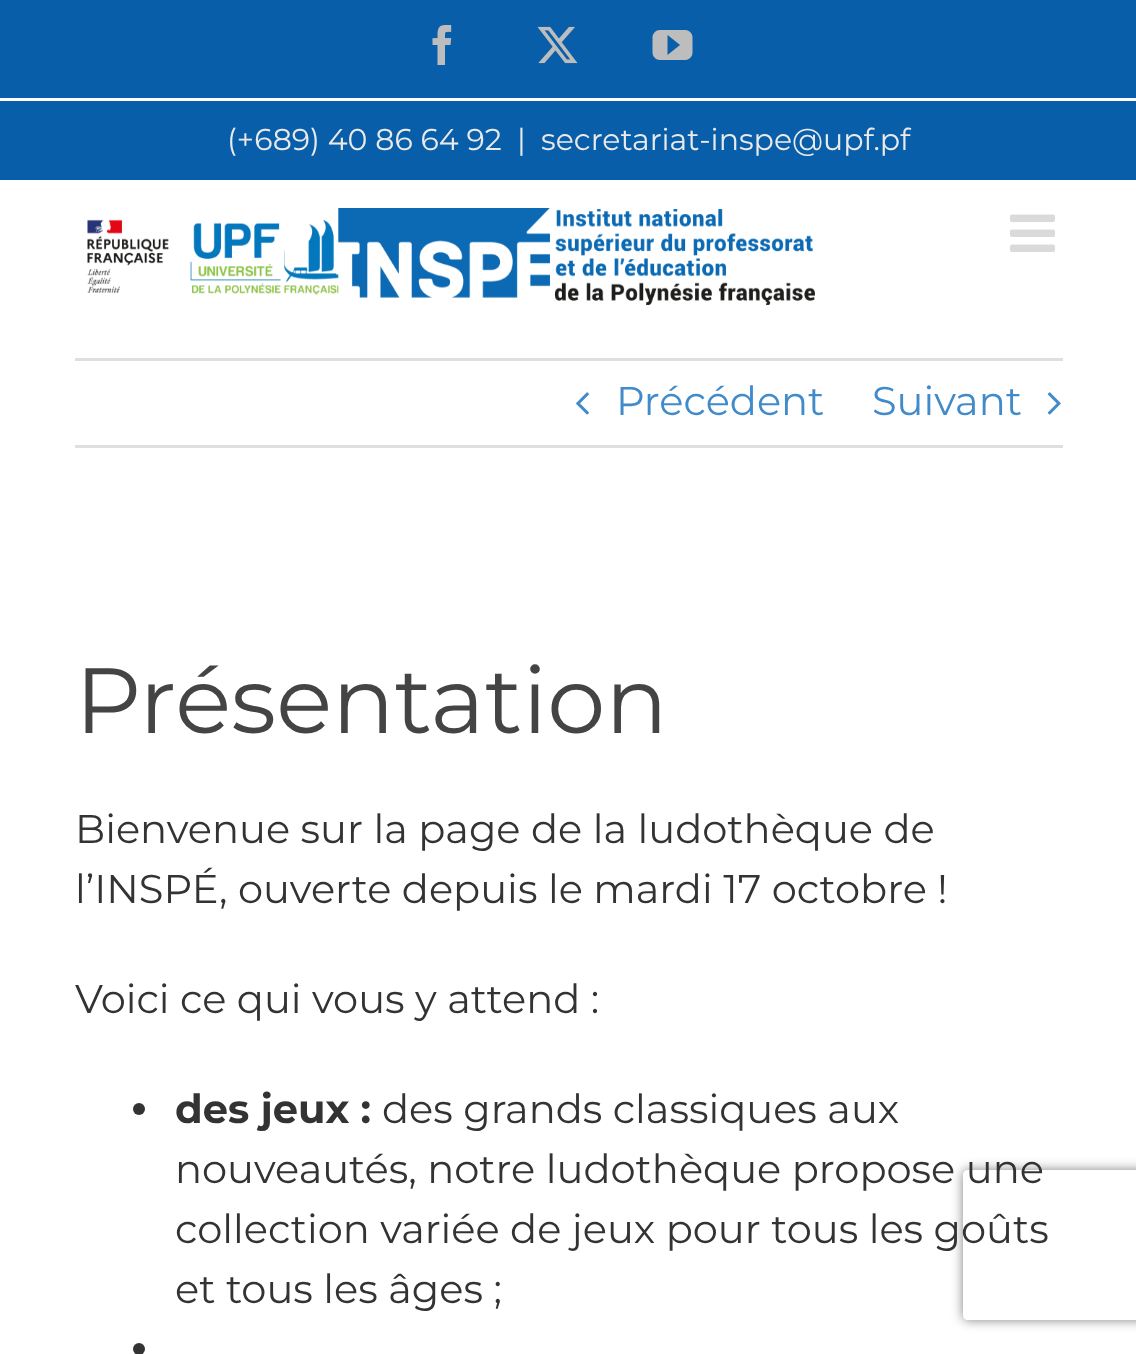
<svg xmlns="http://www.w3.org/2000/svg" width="1136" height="1354">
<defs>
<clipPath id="clip1"><path d="M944 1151h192v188h-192zm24 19h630c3 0 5 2 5 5v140c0 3-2 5-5 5h-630c-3 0-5-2-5-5v-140c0-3 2-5 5-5z" clip-rule="evenodd"/></clipPath>
</defs>
<rect width="100%" height="100%" fill="#fff"/>
<rect width="1136" height="180" fill="#095ea9"/>
<rect y="98" width="1136" height="3" fill="#fff"/>
<image x="432" y="25" width="20" height="40" href="media/1.png"/>
<image x="537" y="26" width="41" height="38" href="media/2.png"/>
<image x="652" y="30" width="41" height="30" href="media/3.png"/>
<text x="227" y="150" style="font-family:Montserrat;font-size:30px;fill:#eaeaea">(+689) 40 86 64 92</text>
<text x="517" y="150" style="font-family:Montserrat;font-size:30px;fill:#eaeaea">|</text>
<text x="541" y="150" style="font-family:Montserrat;font-size:30px;fill:#eaeaea">secretariat-inspe@upf.pf</text>
<image x="87" y="208" width="728" height="97" href="media/4.png"/>
<image x="1010" y="214" width="45" height="38" href="media/5.png"/>
<rect x="75" y="358" width="988" height="3" fill="#e0dede"/>
<rect x="75" y="445" width="988" height="3" fill="#e0dede"/>
<image x="576" y="392" width="13" height="23" href="media/6.png"/>
<text x="616" y="415" style="font-family:Montserrat;font-size:40px;fill:#428bca">Précédent</text>
<text x="872" y="415" style="font-family:Montserrat;font-size:40px;fill:#428bca">Suivant</text>
<image x="1047" y="392" width="14" height="23" href="media/7.png"/>
<text x="75" y="733" style="font-family:Montserrat;font-size:92.5px;fill:#444">Présentation</text>
<text x="75" y="843" style="font-family:Montserrat;font-size:40px;fill:#333">Bienvenue sur la page de la ludothèque de</text>
<text x="75" y="903" style="font-family:Montserrat;font-size:40px;fill:#333">l’INSPÉ, ouverte depuis le mardi 17 octobre !</text>
<text x="75" y="1013" style="font-family:Montserrat;font-size:40px;fill:#333">Voici ce qui vous y attend :</text>
<circle cx="139" cy="1109" r="6" fill="#333"/>
<text x="175" y="1123" style="font-family:Montserrat;font-size:40px;font-weight:bold;fill:#333">des jeux :</text>
<text x="382" y="1123" style="font-family:Montserrat;font-size:40px;fill:#333">des grands classiques aux</text>
<g clip-path="url(#clip1)">
<rect x="963" y="1170" width="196" height="150" rx="5" fill="#808080" filter="blur(6px)"/>
</g>
<text x="175" y="1183" style="font-family:Montserrat;font-size:40px;fill:#333">nouveautés, notre ludothèque propose une</text>
<text x="175" y="1243" style="font-family:Montserrat;font-size:40px;fill:#333">collection variée de jeux pour tous les goûts</text>
<text x="175" y="1303" style="font-family:Montserrat;font-size:40px;fill:#333">et tous les âges ;</text>
<circle cx="139" cy="1349" r="6" fill="#333"/>
</svg>
